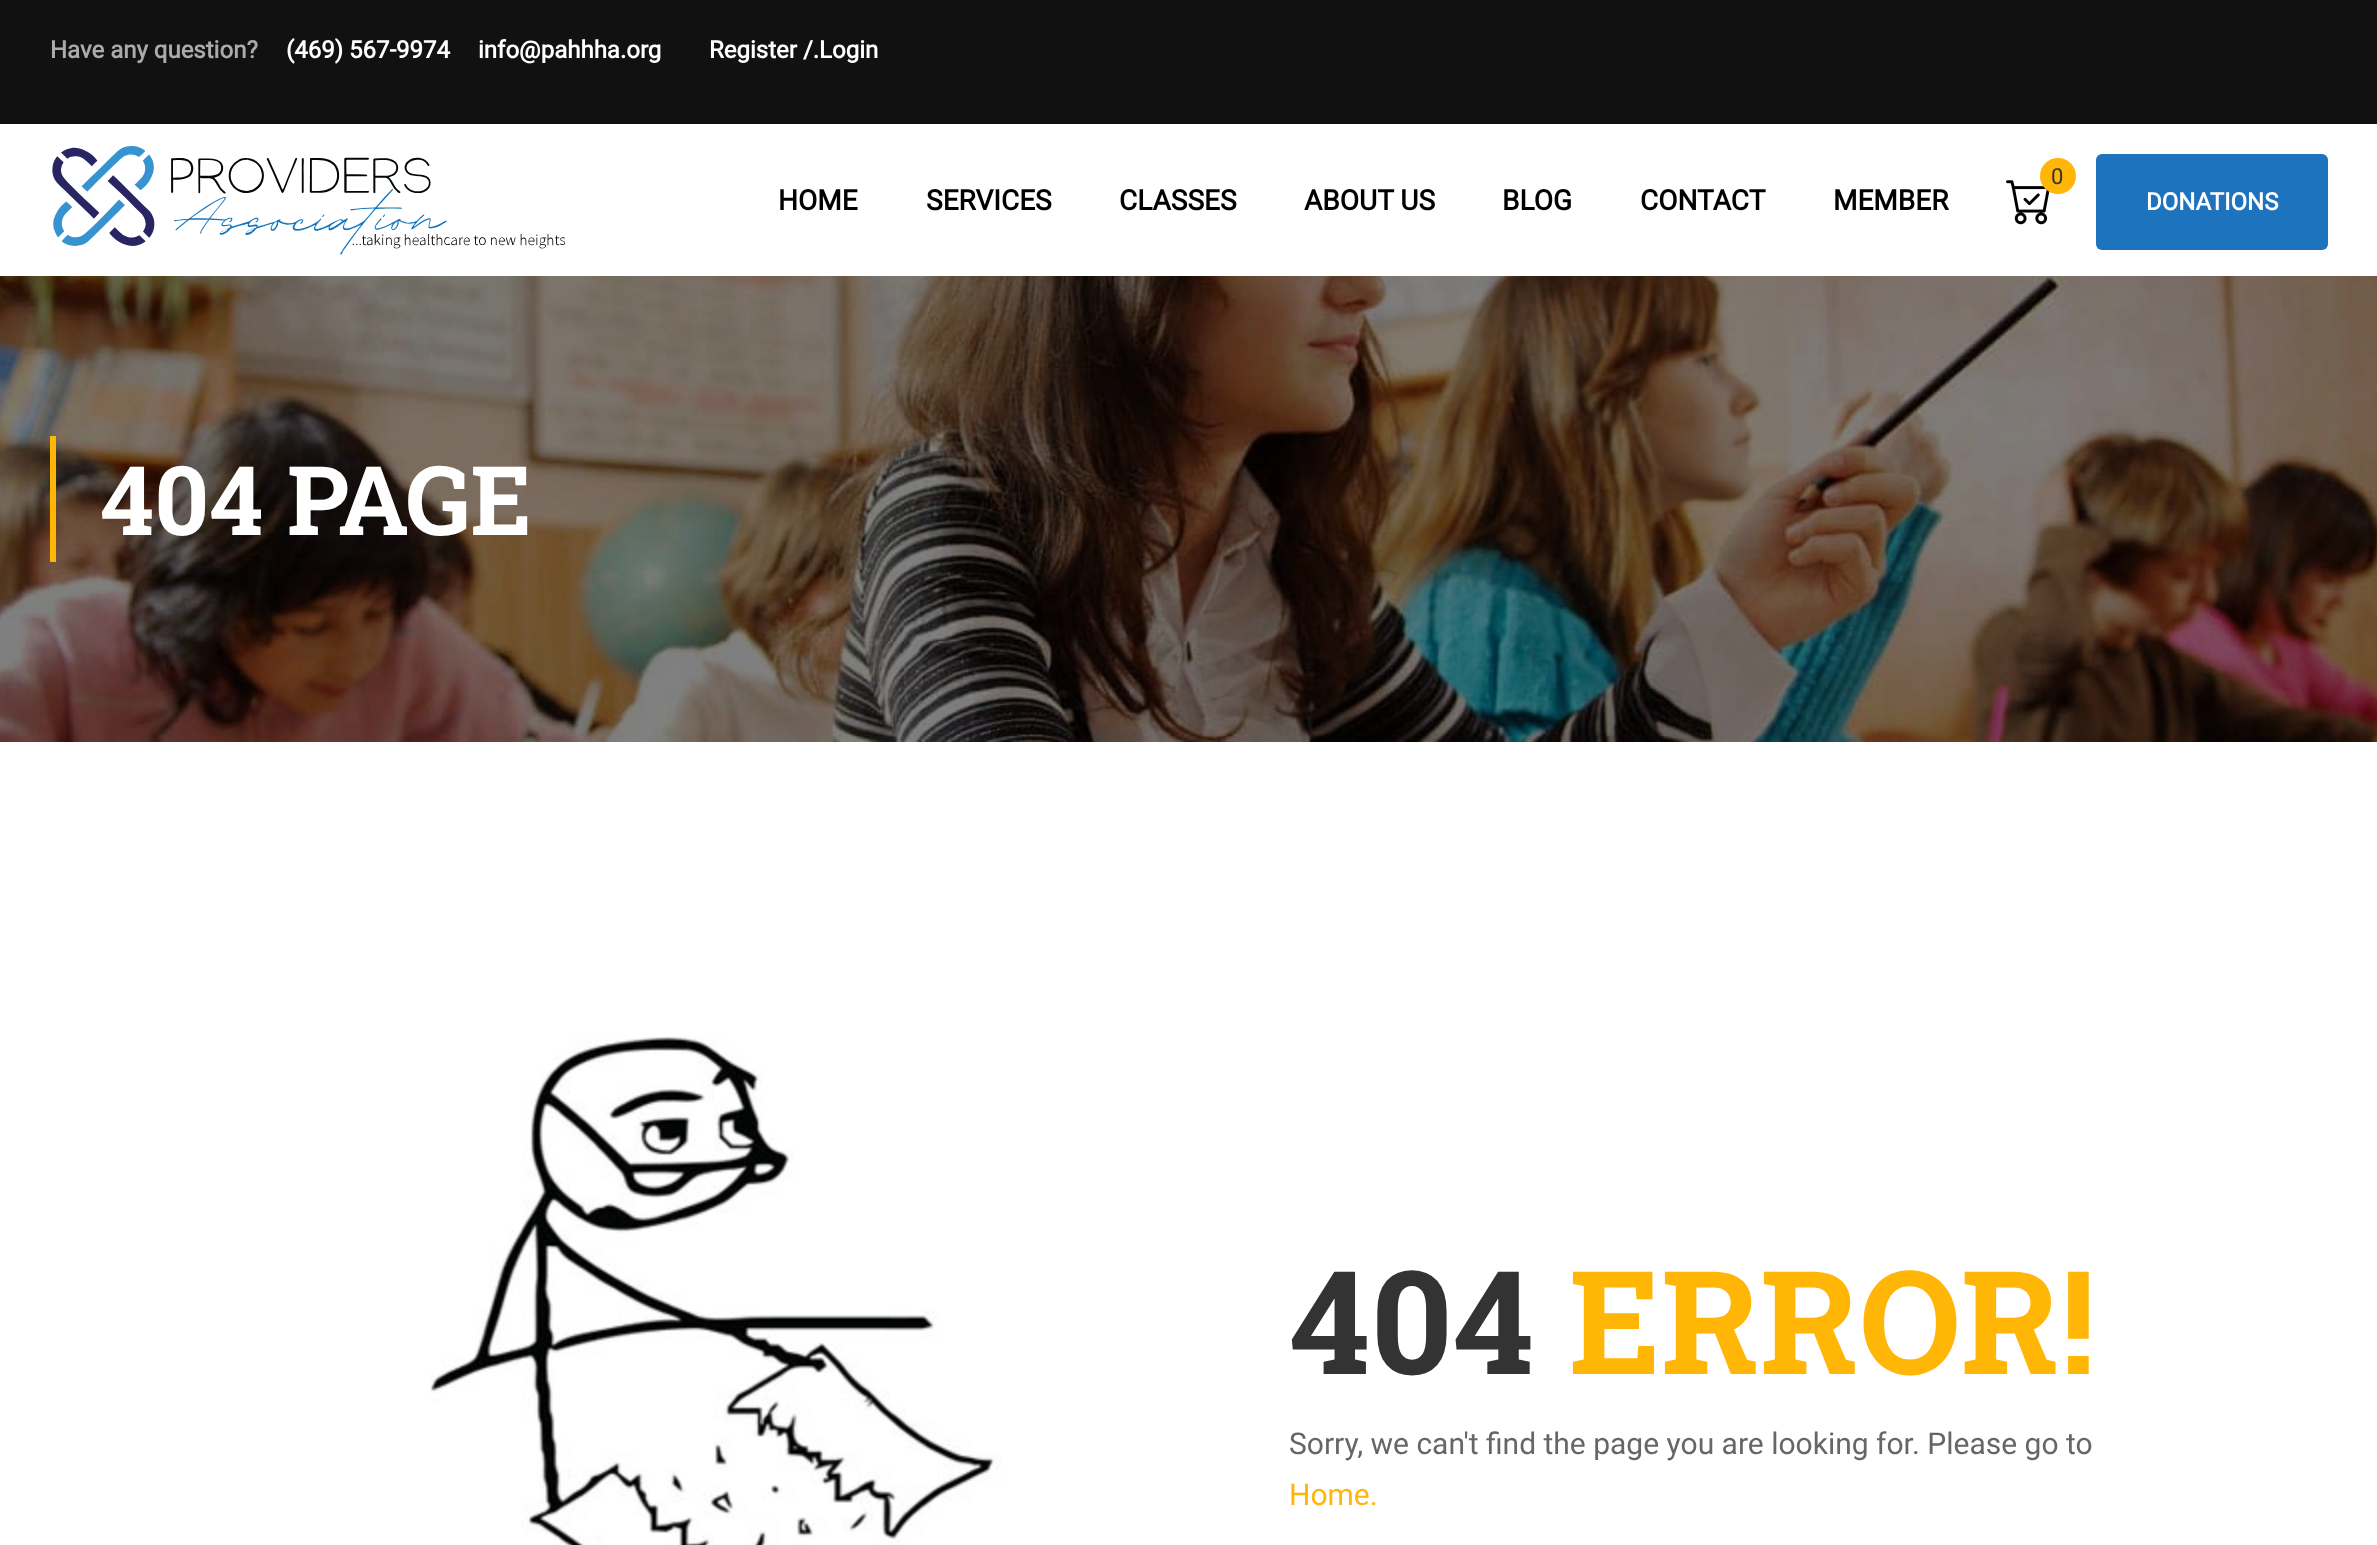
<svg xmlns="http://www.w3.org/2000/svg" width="2377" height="1545">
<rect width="100%" height="100%" fill="#fff"/>
<rect width="2377" height="124" fill="#111"/>
<text x="50" y="58" style="font-family:Roboto;font-size:24px;font-weight:bold;fill:#ababab">Have any question?</text>
<text x="286" y="58" style="font-family:Roboto;font-size:24px;font-weight:bold;fill:#fff">(469) 567-9974</text>
<text x="478" y="58" style="font-family:Roboto;font-size:24px;font-weight:bold;fill:#fff">info@pahhha.org</text>
<text x="709" y="58" style="font-family:Roboto;font-size:24px;font-weight:bold;fill:#fff">Register /.Login</text>
<image x="52" y="146" width="513" height="109" href="media/1.png"/>
<text x="778" y="210" style="font-family:Roboto;font-size:28px;font-weight:bold;fill:#000">HOME</text>
<text x="926" y="210" style="font-family:Roboto;font-size:28px;font-weight:bold;fill:#000">SERVICES</text>
<text x="1119" y="210" style="font-family:Roboto;font-size:28px;font-weight:bold;fill:#000">CLASSES</text>
<text x="1304" y="210" style="font-family:Roboto;font-size:28px;font-weight:bold;fill:#000">ABOUT US</text>
<text x="1502" y="210" style="font-family:Roboto;font-size:28px;font-weight:bold;fill:#000">BLOG</text>
<text x="1640" y="210" style="font-family:Roboto;font-size:28px;font-weight:bold;fill:#000">CONTACT</text>
<text x="1833" y="210" style="font-family:Roboto;font-size:28px;font-weight:bold;fill:#000">MEMBER</text>
<image x="2006" y="180" width="44" height="45" href="media/2.png"/>
<circle cx="2058" cy="176" r="18" fill="#ffb606"/>
<text x="2051" y="184" style="font-family:Roboto;font-size:22px;fill:#333">0</text>
<rect x="2096" y="154" width="232" height="96" rx="6" fill="#1e73be"/>
<text x="2146" y="210" style="font-family:Roboto;font-size:24px;font-weight:bold;fill:#fff">DONATIONS</text>
<image x="0" y="276" width="2377" height="466" href="media/3.png"/>
<rect x="50" y="436" width="6" height="126" fill="#ffb606"/>
<text x="100" y="535" style="font-family:Roboto Slab;font-size:96px;font-weight:bold;fill:#fff">404 PAGE</text>
<image x="430" y="1036" width="572" height="509" href="media/4.png"/>
<text x="1289" y="1374" style="font-family:Roboto Slab;font-size:144px;font-weight:bold;fill:#333">404</text>
<text x="1569" y="1374" style="font-family:Roboto Slab;font-size:144px;font-weight:bold;fill:#ffb606">ERROR!</text>
<text x="1289" y="1454" style="font-family:Roboto;font-size:30px;fill:#666">Sorry, we can't find the page you are looking for. Please go to</text>
<text x="1289" y="1505" style="font-family:Roboto;font-size:30px;fill:#ffb606">Home.</text>
</svg>
